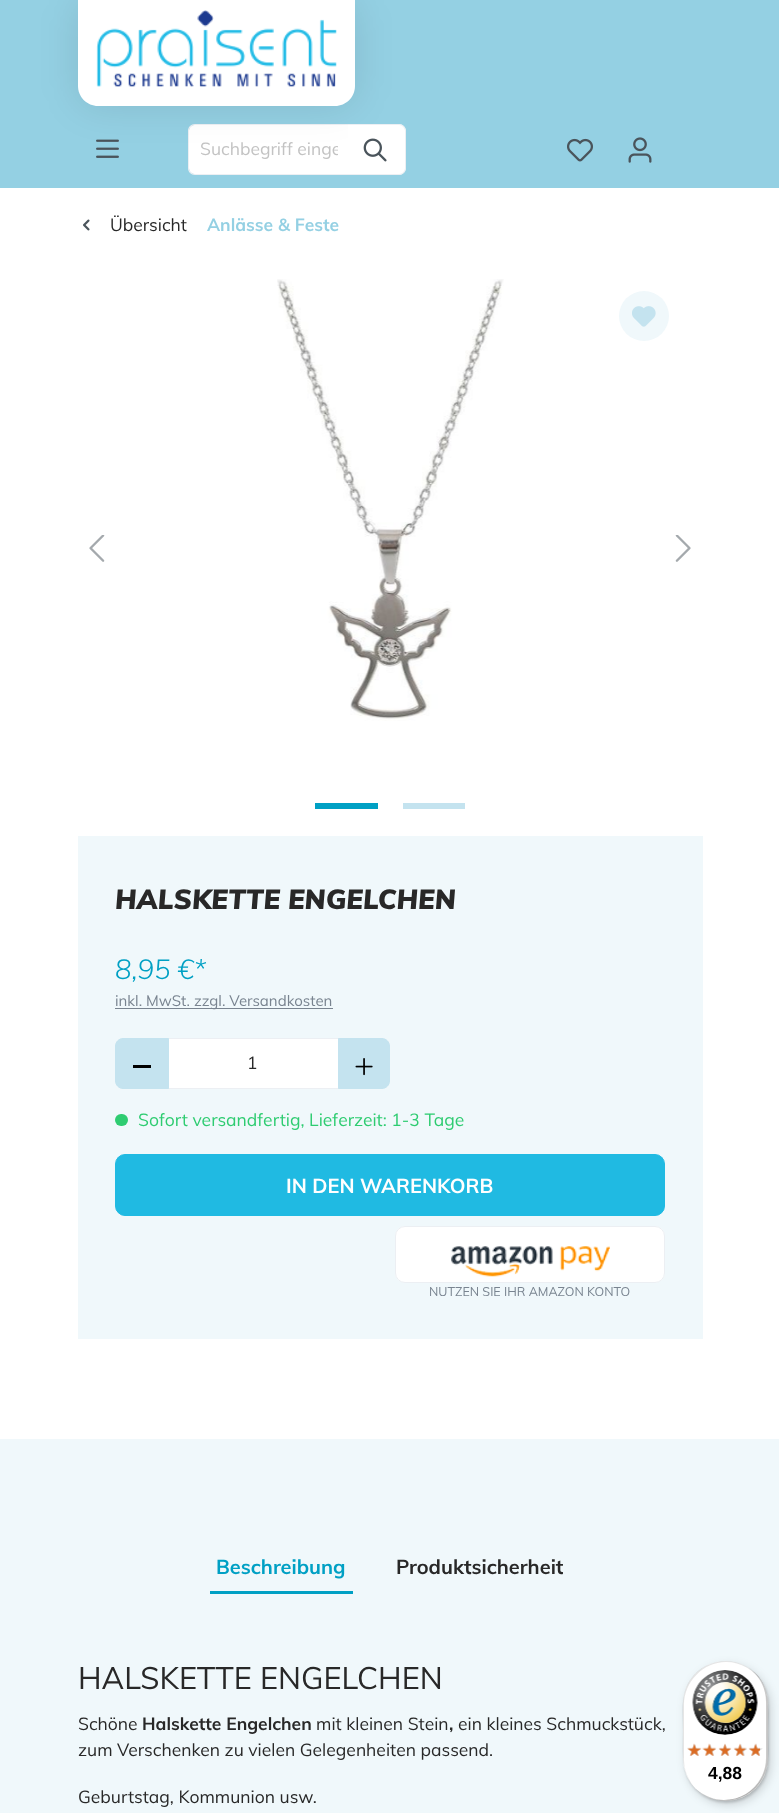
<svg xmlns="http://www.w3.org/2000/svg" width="779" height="1813">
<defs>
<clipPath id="clip1"><rect x="200" y="138" width="138" height="22"/></clipPath>
</defs>
<rect width="100%" height="100%" fill="#fff"/>
<rect width="779" height="188" fill="#94d0e3"/>
<image x="96" y="139" width="23" height="19" href="media/4.png"/>
<path d="M195 125h154v49h-154c-3.5 0-6-2.5-6-6v-37c0-3.5 2.5-6 6-6z" fill="#fff"/>
<path d="M195 124h154v51h-154c-4 0-7-3-7-7v-37c0-4 3-7 7-7zm0 1h154v49h-154c-3 0-6-3-6-6v-37c0-3 3-6 6-6z" fill="#eceff3" fill-rule="evenodd"/>
<rect x="78" width="277" height="106" rx="20" fill="#0000001a" filter="blur(19px)"/>
<path d="M78 0h277v86c0 11-9 20-20 20h-237c-11 0-20-9-20-20z" fill="#fff"/>
<image x="96" y="10" width="241" height="77" href="media/1.png"/>
<image x="567" y="138" width="26" height="24" href="media/2.png"/>
<image x="628" y="137" width="24" height="26" href="media/3.png"/>
<g clip-path="url(#clip1)">
<text x="200" y="155" style="font-family:Muli;font-size:17.5px;fill:#c3c3c3">Suchbegriff einge</text>
</g>
<path d="M348 124h50c4.5 0 8 3.5 8 8v35c0 4.5-3.5 8-8 8h-50z" fill="#fff"/>
<path d="M348 124h51c4 0 7 3 7 7v37c0 4-3 7-7 7h-51zm0 1h51c3 0 6 3 6 6v37c0 3-3 6-6 6h-51z" fill="#eceff3" fill-rule="evenodd"/>
<image x="363" y="138" width="24" height="24" href="media/5.png"/>
<image x="83" y="219" width="7" height="12" href="media/6.png"/>
<text x="110" y="231" style="font-family:Muli;font-size:17.5px;fill:#282828">Übersicht</text>
<text x="207" y="231" style="font-family:Muli;font-size:17.5px;font-weight:bold;fill:#94d0e3">Anlässe &amp; Feste</text>
<image x="277" y="279" width="227" height="442" href="media/7.png"/>
<image x="89" y="535" width="16" height="27" href="media/8.png"/>
<image x="675" y="535" width="16" height="27" href="media/9.png"/>
<rect x="315" y="803" width="63" height="6" fill="#00a0c4"/>
<rect x="403" y="803" width="62" height="6" fill="#c4e3ef"/>
<circle cx="644" cy="316" r="25" fill="#f0f8fb"/>
<image x="632" y="306" width="24" height="21" href="media/10.png"/>
<rect x="78" y="836" width="625" height="503" fill="#f0f8fb"/>
<text x="115" y="909" style="font-family:Muli;font-size:27.5px;font-weight:900;font-style:italic;fill:#282828">HALSKETTE ENGELCHEN</text>
<text x="115" y="979" style="font-family:Muli;font-size:27.5px;font-weight:300;font-style:italic;fill:#00a0c4">8,95 €*</text>
<rect x="115" y="1008" width="218" height="1" fill="#798490"/>
<text x="115" y="1006" style="font-family:Muli;font-size:15px;fill:#798490">inkl. MwSt. zzgl. Versandkosten</text>
<rect x="168" y="1038" width="171" height="1" fill="#eceff3"/>
<rect x="168" y="1088" width="171" height="1" fill="#eceff3"/>
<path d="M123 1038.5h45.5v50h-45.5c-4 0-7.5-3.5-7.5-7.5v-35c0-4 3.5-7.5 7.5-7.5z" fill="#c4e3ef" stroke="#c4e3ef"/>
<rect x="133" y="1065" width="18" height="3" fill="#000"/>
<rect x="169" y="1039" width="169" height="49" fill="#fff"/>
<text x="247" y="1069" style="font-family:Muli;font-size:17.5px;fill:#282828">1</text>
<path d="M338.5 1038.5h43.5c4 0 7.5 3.5 7.5 7.5v35c0 4-3.5 7.5-7.5 7.5h-43.5z" fill="#c4e3ef" stroke="#c4e3ef"/>
<image x="355" y="1058" width="18" height="18" href="media/11.png"/>
<rect x="115" y="1114" width="13" height="12" rx="6" fill="#2ecc71"/>
<text x="138" y="1126" style="font-family:Muli;font-size:17.5px;fill:#2ecc71">Sofort versandfertig, Lieferzeit: 1-3 Tage</text>
<rect x="115.5" y="1154.5" width="549" height="61" rx="9.5" fill="#20bae2" stroke="#20bae2"/>
<text x="286" y="1193" style="font-family:Muli;font-size:20px;font-weight:bold;fill:#fff">IN DEN WARENKORB</text>
<rect x="395" y="1226" width="270" height="57" rx="10" fill="#fff"/>
<image x="451" y="1246" width="159" height="31" href="media/12.png"/>
<rect x="395.5" y="1226.5" width="269" height="56" rx="9.5" fill="none" stroke="#eceff3"/>
<text x="429" y="1296" style="font-family:Muli;font-size:12.5px;fill:#798490">NUTZEN SIE IHR AMAZON KONTO</text>
<rect y="1439" width="779" height="374" fill="#f0f8fb"/>
<text x="216" y="1574" style="font-family:Muli;font-size:20px;font-weight:bold;fill:#00a0c4">Beschreibung</text>
<rect x="210" y="1591" width="143" height="3" fill="#00a0c4"/>
<text x="396" y="1574" style="font-family:Muli;font-size:20px;font-weight:bold;fill:#282828">Produktsicherheit</text>
<text x="78" y="1689" style="font-family:Muli;font-size:30.75px;fill:#282828">HALSKETTE ENGELCHEN</text>
<text x="78" y="1730" style="font-family:Muli;font-size:17.5px;fill:#282828">Schöne</text>
<text x="142" y="1730" style="font-family:Muli;font-size:17.5px;font-weight:bold;fill:#282828">Halskette Engelchen</text>
<text x="316" y="1730" style="font-family:Muli;font-size:17.5px;fill:#282828">mit kleinen Stein</text>
<text x="449" y="1730" style="font-family:Muli;font-size:17.5px;font-weight:bold;fill:#282828">,</text>
<text x="458" y="1730" style="font-family:Muli;font-size:17.5px;fill:#282828">ein kleines Schmuckstück,</text>
<text x="78" y="1756" style="font-family:Muli;font-size:17.5px;fill:#282828">zum Verschenken zu vielen Gelegenheiten passend.</text>
<text x="78" y="1803" style="font-family:Muli;font-size:17.5px;fill:#282828">Geburtstag, Kommunion usw.</text>
<rect x="686" y="1665" width="85" height="140" rx="42.5" fill="#00000026" filter="blur(5px)"/>
<rect x="684" y="1663" width="85" height="140" rx="42.5" fill="#00000026" filter="blur(1px)"/>
<rect x="683" y="1661" width="85" height="140" rx="42.5" fill="#fff"/>
<path d="M726 1662c15 0 28 8 36 20c-16-27-54-28-72-2c-10 15-7 34-7 51c0 19-3 40 11 56c-6-8-10-17-10-27v-55c0-23 19-43 42-43z" fill="#0000001a"/>
<path d="M705 1795c24 14 56 0 62-28c2-10 1-25 1-36c0-26 4-51-23-65c13 7 21 21 21 36v56c0 23-19 42-42 42c-7 0-14-2-19-5z" fill="#00000033"/>
<path d="M697 1790c8 7 18 11 29 11c23 0 42-19 42-43v-54c0-16-8-29-20-37c12 8 19 22 19 36v55c0 23-19 42-43 42c-10 0-19-4-27-10z" fill="#32323233"/>
<path d="M726 1661h-1c23 0 42 19 42 42v55c0 24-19 43-42 43h1c23 0 42-19 42-43v-54c0-24-19-43-42-43z" fill="#ffffff4d"/>
<image x="692" y="1670" width="66" height="65" href="media/13.png"/>
<image x="687" y="1744" width="14" height="12" href="media/19.png"/>
<image x="687" y="1743" width="15" height="13" href="media/14.png"/>
<image x="704" y="1744" width="12" height="12" href="media/20.png"/>
<image x="702" y="1743" width="15" height="13" href="media/15.png"/>
<image x="719" y="1744" width="12" height="12" href="media/21.png"/>
<image x="718" y="1743" width="14" height="13" href="media/16.png"/>
<image x="734" y="1744" width="13" height="12" href="media/22.png"/>
<image x="733" y="1743" width="14" height="13" href="media/17.png"/>
<image x="749" y="1744" width="14" height="12" href="media/23.png"/>
<image x="748" y="1743" width="12" height="13" href="media/18.png"/>
<text x="708" y="1779" style="font-family:Liberation Sans;font-size:17.5px;font-weight:bold;fill:#000">4,88</text>
</svg>
